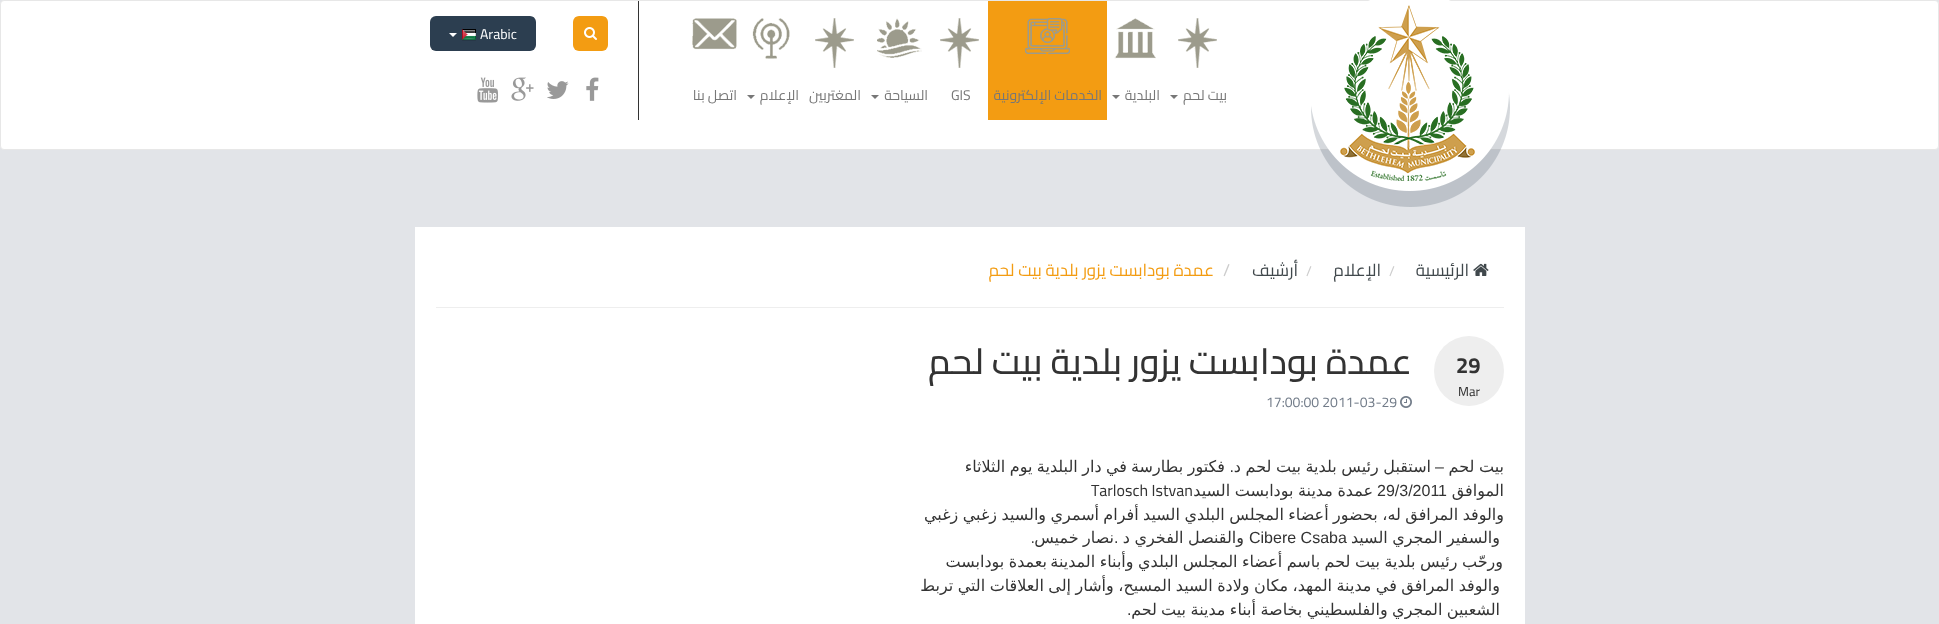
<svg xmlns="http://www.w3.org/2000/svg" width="1939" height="624">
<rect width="100%" height="100%" fill="#e2e4e8"/>
<rect x="0.5" y="0.5" width="1938" height="149" rx="3.5" fill="#fff" stroke="#e7e7e7"/>
<image x="1311" y="0" width="199" height="207" href="media/1.png"/>
<rect x="573" y="16" width="35" height="35" rx="6" fill="#f39c12"/>
<image x="584" y="27" width="13" height="13" href="media/2.png"/>
<rect x="430" y="16" width="106" height="35" rx="6" fill="#2c3e50"/>
<text x="480" y="39" style="font-family:Cairo;font-size:14px;fill:#fff">Arabic</text>
<image x="462" y="29" width="14" height="12" href="media/3.png"/>
<path d="M449 33h8l-4 4z" fill="#fff"/>
<image x="586" y="77" width="13" height="24" href="media/4.png"/>
<image x="547" y="81" width="22" height="18" href="media/5.png"/>
<image x="511" y="77" width="23" height="24" href="media/6.png"/>
<image x="477" y="77" width="22" height="26" href="media/7.png"/>
<rect x="638" y="1" width="1" height="119" fill="#333"/>
<image x="1178" y="18" width="39" height="50" href="media/8.png"/>
<text x="1227" y="100" style="font-family:Cairo;font-size:14px;direction:rtl;fill:#777">بيت لحم</text>
<path d="M1170 95h8l-4 4z" fill="#777"/>
<image x="1114" y="18" width="42" height="41" href="media/9.png"/>
<text x="1160" y="100" style="font-family:Cairo;font-size:14px;direction:rtl;fill:#777">البلدية</text>
<path d="M1112 95h8l-4 4z" fill="#777"/>
<rect x="988" y="1" width="119" height="119" fill="#f39c12"/>
<image x="1025" y="18" width="45" height="36" href="media/10.png"/>
<text x="1102" y="100" style="font-family:Cairo;font-size:14px;direction:rtl;fill:#777">الخدمات الإلكترونية</text>
<image x="940" y="18" width="39" height="50" href="media/8.png"/>
<text x="951" y="100" style="font-family:Cairo;font-size:14px;fill:#777">GIS</text>
<image x="877" y="18" width="45" height="40" href="media/11.png"/>
<text x="928" y="100" style="font-family:Cairo;font-size:14px;direction:rtl;fill:#777">السياحة</text>
<path d="M871 95h8l-4 4z" fill="#777"/>
<image x="815" y="18" width="39" height="50" href="media/8.png"/>
<text x="861" y="100" style="font-family:Cairo;font-size:14px;direction:rtl;fill:#777">المغتربين</text>
<image x="752" y="18" width="38" height="41" href="media/12.png"/>
<text x="799" y="100" style="font-family:Cairo;font-size:14px;direction:rtl;fill:#777">الإعلام</text>
<path d="M747 95h8l-4 4z" fill="#777"/>
<image x="692" y="18" width="45" height="32" href="media/13.png"/>
<text x="737" y="100" style="font-family:Cairo;font-size:14px;direction:rtl;fill:#777">اتصل بنا</text>
<rect x="415" y="227" width="1110" height="397" fill="#fff"/>
<rect x="436" y="307" width="1068" height="1" fill="#eee"/>
<image x="1473" y="263" width="16" height="13" href="media/14.png"/>
<text x="1469" y="276" style="font-family:Cairo;font-size:17px;direction:rtl;fill:#40484c">الرئيسية</text>
<text x="1389" y="276" style="font-family:Cairo;font-size:14px;fill:#ccc">/</text>
<text x="1381" y="276" style="font-family:Cairo;font-size:17px;direction:rtl;fill:#40484c">الإعلام</text>
<text x="1306" y="276" style="font-family:Cairo;font-size:14px;fill:#ccc">/</text>
<text x="1298" y="276" style="font-family:Cairo;font-size:17px;direction:rtl;fill:#40484c">أرشيف</text>
<text x="1223" y="276" style="font-family:Cairo;font-size:17px;fill:#ccc">/</text>
<text x="1214" y="276" style="font-family:Cairo;font-size:17px;direction:rtl;fill:#f39c12">عمدة بودابست يزور بلدية بيت لحم</text>
<circle cx="1469" cy="371" r="35" fill="#eee"/>
<text x="1456" y="373" style="font-family:Cairo;font-size:22px;font-weight:bold;fill:#333">29</text>
<text x="1458" y="396" style="font-family:Cairo;font-size:13px;fill:#333">Mar</text>
<text x="1412" y="374" style="font-family:Cairo;font-size:36px;font-weight:500;direction:rtl;fill:#333">عمدة بودابست يزور بلدية بيت لحم</text>
<image x="1400" y="396" width="12" height="12" href="media/15.png"/>
<text x="1266" y="407" style="font-family:Cairo;font-size:14px;fill:#727c89">17:00:00 2011-03-29</text>
<text x="1504" y="472" word-spacing="-0.5" style="font-family:DejaVu Sans;font-size:16px;direction:rtl;fill:#333">بيت لحم</text>
<text x="1444" y="472" style="font-family:Liberation Sans;font-size:16px;direction:rtl;fill:#333">–</text>
<text x="1431" y="472" word-spacing="-0.5" style="font-family:DejaVu Sans;font-size:16px;direction:rtl;fill:#333">استقبل رئيس بلدية بيت لحم د</text>
<text x="1225" y="472" word-spacing="-0.5" style="font-family:DejaVu Sans;font-size:16px;direction:rtl;fill:#333">فكتور بطارسة</text>
<text x="1127" y="472" word-spacing="-0.6" style="font-family:DejaVu Sans;font-size:16px;direction:rtl;fill:#333">في دار البلدية يوم الثلاثاء</text>
<text x="1234" y="472" style="font-family:Liberation Sans;font-size:16px;direction:rtl;fill:#333">.</text>
<text x="1504" y="496" style="font-family:DejaVu Sans;font-size:16px;direction:rtl;fill:#333">الموافق</text>
<text x="1377" y="496" style="font-family:Liberation Sans;font-size:16px;fill:#333">29/3/2011</text>
<text x="1373" y="496" word-spacing="-0.5" style="font-family:DejaVu Sans;font-size:16px;direction:rtl;fill:#333">عمدة مدينة بودابست السيد</text>
<text x="1091" y="496" style="font-family:Cairo;font-size:16px;fill:#333">Tarlosch Istvan</text>
<text x="1504" y="520" word-spacing="-0.6" style="font-family:DejaVu Sans;font-size:16px;direction:rtl;fill:#333">والوفد المرافق له، بحضور أعضاء المجلس البلدي السيد أفرام</text>
<text x="1099" y="520" word-spacing="-0.6" style="font-family:DejaVu Sans;font-size:16px;direction:rtl;fill:#333">أسمري والسيد زغبي زغبي</text>
<text x="1500" y="543" word-spacing="-0.6" style="font-family:DejaVu Sans;font-size:16px;direction:rtl;fill:#333">والسفير المجري السيد</text>
<text x="1249" y="543" style="font-family:Liberation Sans;font-size:16px;fill:#333">Cibere Csaba</text>
<text x="1244" y="543" word-spacing="-0.6" style="font-family:DejaVu Sans;font-size:16px;direction:rtl;fill:#333">والقنصل الفخري د</text>
<text x="1114" y="543" style="font-family:Liberation Sans;font-size:16px;fill:#333">.</text>
<text x="1114" y="543" word-spacing="-0.6" style="font-family:DejaVu Sans;font-size:16px;direction:rtl;fill:#333">نصار خميس</text>
<text x="1031" y="543" style="font-family:Cairo;font-size:16px;fill:#333">.</text>
<text x="1503" y="567" word-spacing="-0.6" style="font-family:DejaVu Sans;font-size:16px;direction:rtl;fill:#333">ورحّب رئيس بلدية بيت لحم باسم أعضاء المجلس البلدي وأبناء المدينة</text>
<text x="1047" y="567" word-spacing="-0.6" style="font-family:DejaVu Sans;font-size:16px;direction:rtl;fill:#333">بعمدة بودابست</text>
<text x="1500" y="591" word-spacing="-0.6" style="font-family:DejaVu Sans;font-size:16px;direction:rtl;fill:#333">والوفد المرافق في مدينة المهد، مكان ولادة السيد المسيح، وأشار</text>
<text x="1071" y="591" word-spacing="-0.6" style="font-family:DejaVu Sans;font-size:16px;direction:rtl;fill:#333">إلى العلاقات التي تربط</text>
<text x="1500" y="615" word-spacing="-0.6" style="font-family:DejaVu Sans;font-size:16px;direction:rtl;fill:#333">الشعبين المجري والفلسطيني بخاصة أبناء مدينة بيت</text>
<text x="1157" y="615" style="font-family:DejaVu Sans;font-size:16px;direction:rtl;fill:#333">لحم</text>
<text x="1127" y="615" style="font-family:Liberation Sans;font-size:16px;fill:#333">.</text>
</svg>
